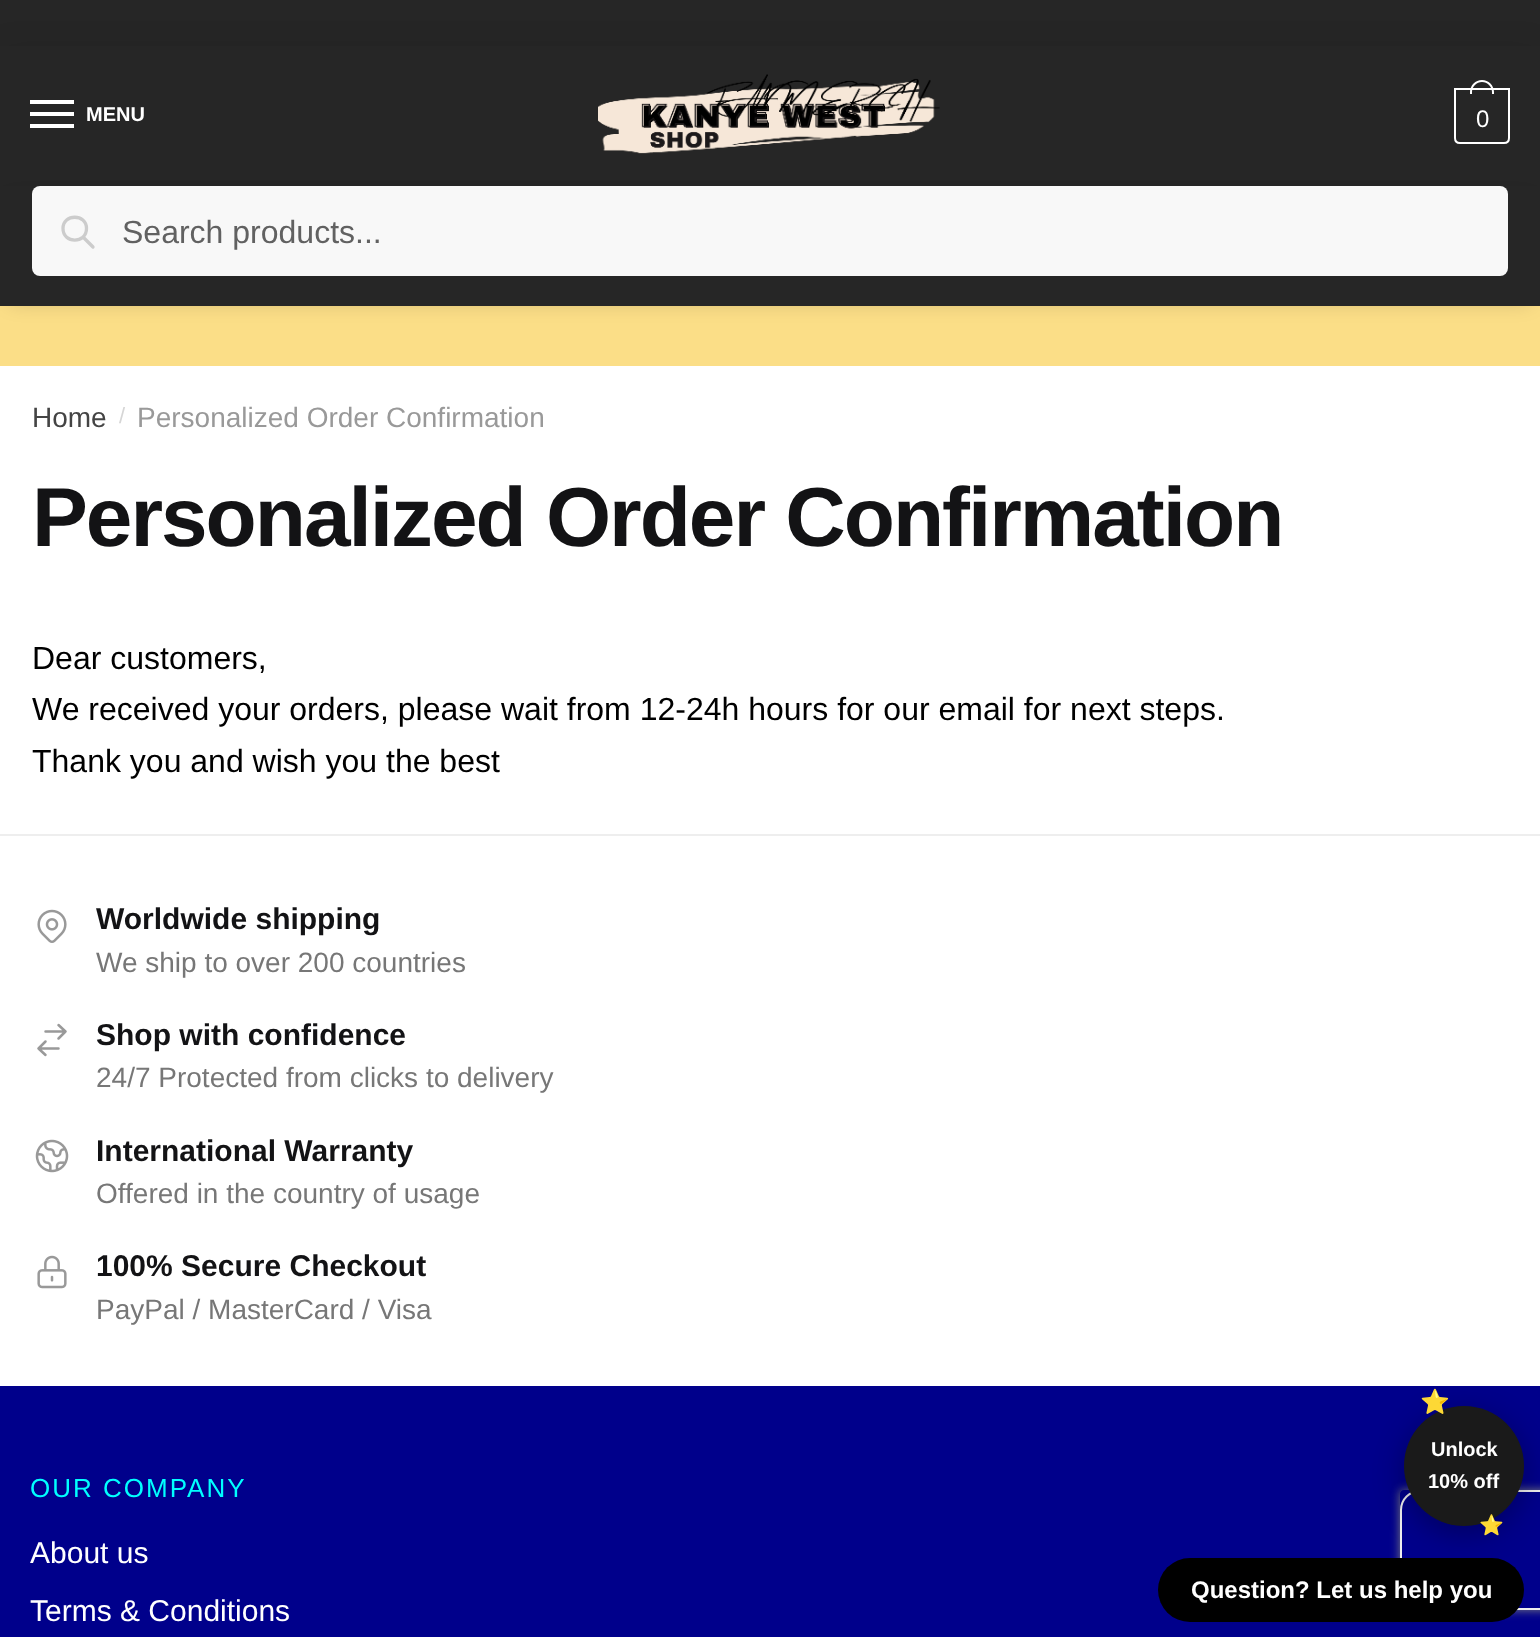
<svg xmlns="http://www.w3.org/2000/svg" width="1540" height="1637">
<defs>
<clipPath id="clip1"><path d="M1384 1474h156v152h-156zm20 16h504c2 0 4 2 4 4v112c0 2-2 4-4 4h-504c-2 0-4-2-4-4v-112c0-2 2-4 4-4z" clip-rule="evenodd"/></clipPath>
</defs>
<rect width="100%" height="100%" fill="#fff"/>
<rect width="1540" height="46" fill="#262626"/>
<rect y="48" width="1540" height="140" fill="#00000014" filter="blur(15px)"/>
<rect y="46" width="1540" height="140" fill="#262626"/>
<rect x="30" y="100" width="44" height="4" fill="#fff"/>
<rect x="30" y="112" width="44" height="4" fill="#fff"/>
<text x="86" y="121" style="font-family:Liberation Sans;font-size:20px;font-weight:bold;fill:#fff">MENU</text>
<rect x="30" y="124" width="44" height="4" fill="#fff"/>
<image x="598" y="74" width="342" height="80" href="media/1.png"/>
<path d="M1455 89h54v49c0 3-2 5-5 5h-44c-3 0-5-2-5-5z" fill="none" stroke="#fff" stroke-width="2"/>
<path d="M1482 80c6.5 0 12 5.5 12 12v2h-24v-2c0-6.5 5.5-12 12-12zm0 2c5.5 0 10 4.5 10 10v2h-20v-2c0-5.5 4.5-10 10-10z" fill="#fff" fill-rule="evenodd"/>
<text x="1476" y="127" style="font-family:Liberation Sans;font-size:24px;letter-spacing:-1px;fill:#fff">0</text>
<rect y="306" width="1540" height="60" fill="#fbde87"/>
<rect x="10" y="202" width="1520" height="100" fill="#0000002e" filter="blur(10px)"/>
<rect y="186" width="1540" height="120" fill="#262626"/>
<rect x="32" y="186" width="1476" height="90" rx="8" fill="#f8f8f8"/>
<path d="M93 247l-10-10m3.5-8.5c0 15.5-23.5 15.5-23.5 0c0-15 23.5-15 23.5 0z" fill="none" stroke="#ccc" stroke-width="3.3" stroke-linecap="round" stroke-linejoin="round"/>
<text x="122" y="243" style="font-family:Liberation Sans;font-size:32px;fill:#616161">Search products...</text>
<text x="32" y="427" style="font-family:Liberation Sans;font-size:28px;fill:#444">Home</text>
<text x="119" y="423" style="font-family:Liberation Sans;font-size:22px;fill:#d6d6d6">/</text>
<text x="137" y="427" style="font-family:Liberation Sans;font-size:28px;fill:#999">Personalized Order Confirmation</text>
<text x="32" y="546" style="font-family:Liberation Sans;font-size:83.75px;font-weight:bold;letter-spacing:-2px;fill:#131315">Personalized Order Confirmation</text>
<text x="32" y="669" style="font-family:Liberation Sans;font-size:32px;fill:#000">Dear customers,</text>
<text x="32" y="720" style="font-family:Liberation Sans;font-size:32px;fill:#000">We received your orders, please wait from 12-24h hours for our email for next steps.</text>
<text x="32" y="772" style="font-family:Liberation Sans;font-size:32px;fill:#000">Thank you and wish you the best</text>
<rect y="834" width="1540" height="2" fill="#eee"/>
<text x="96" y="929" style="font-family:Liberation Sans;font-size:30px;font-weight:bold;fill:#131315">Worldwide shipping</text>
<image x="37" y="909" width="30" height="34" href="media/2.png"/>
<text x="96" y="972" style="font-family:Liberation Sans;font-size:28px;fill:#777">We ship to over 200 countries</text>
<text x="96" y="1045" style="font-family:Liberation Sans;font-size:30px;font-weight:bold;fill:#131315">Shop with confidence</text>
<path d="M45.5 1031.5h20m0 0l-7-6.5m7 6.5l-7 7m0 10h-20m0 0l7 6.5m-7-6.5l7-7" fill="none" stroke="#999" stroke-width="2.5" stroke-linecap="round" stroke-linejoin="round"/>
<text x="96" y="1087" style="font-family:Liberation Sans;font-size:28px;fill:#777">24/7 Protected from clicks to delivery</text>
<text x="96" y="1161" style="font-family:Liberation Sans;font-size:30px;font-weight:bold;fill:#131315">International Warranty</text>
<image x="35" y="1139" width="34" height="34" href="media/3.png"/>
<text x="96" y="1203" style="font-family:Liberation Sans;font-size:28px;fill:#777">Offered in the country of usage</text>
<text x="96" y="1276" style="font-family:Liberation Sans;font-size:30px;font-weight:bold;fill:#131315">100% Secure Checkout</text>
<image x="37" y="1255" width="30" height="34" href="media/4.png"/>
<text x="96" y="1319" style="font-family:Liberation Sans;font-size:28px;fill:#777">PayPal / MasterCard / Visa</text>
<rect y="1386" width="1540" height="251" fill="#00008b"/>
<text x="30" y="1497" style="font-family:Liberation Sans;font-size:26px;letter-spacing:2px;fill:#0ff">OUR COMPANY</text>
<text x="30" y="1563" style="font-family:Liberation Sans;font-size:30px;fill:#fff">About us</text>
<text x="30" y="1621" style="font-family:Liberation Sans;font-size:30px;fill:#fff">Terms &amp; Conditions</text>
<g clip-path="url(#clip1)">
<rect x="1400" y="1490" width="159" height="120" rx="4" fill="#808080" filter="blur(5px)"/>
</g>
<rect x="1401" y="1491" width="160" height="118" rx="19" fill="none" stroke="#eee" stroke-width="2"/>
<rect x="1158" y="1558" width="366" height="64" rx="32" fill="#000"/>
<rect x="1404" y="1414" width="120" height="120" rx="60" fill="#0000004d" filter="blur(15px)"/>
<circle cx="1464" cy="1466" r="60" fill="#1a1a1a"/>
<text x="1420" y="1410" style="font-family:Noto Color Emoji;font-size:24px;font-weight:bold;fill:#ffd700">⭐</text>
<text x="1431" y="1456" style="font-family:Liberation Sans;font-size:20px;font-weight:bold;fill:#fff">Unlock</text>
<text x="1428" y="1488" style="font-family:Liberation Sans;font-size:20px;font-weight:bold;fill:#fff">10% off</text>
<text x="1479" y="1532" style="font-family:Noto Color Emoji;font-size:20px;font-weight:bold;fill:#ffd700">⭐</text>
<text x="1191" y="1598" style="font-family:Liberation Sans;font-size:24px;font-weight:bold;fill:#fff">Question? Let us help you</text>
</svg>
